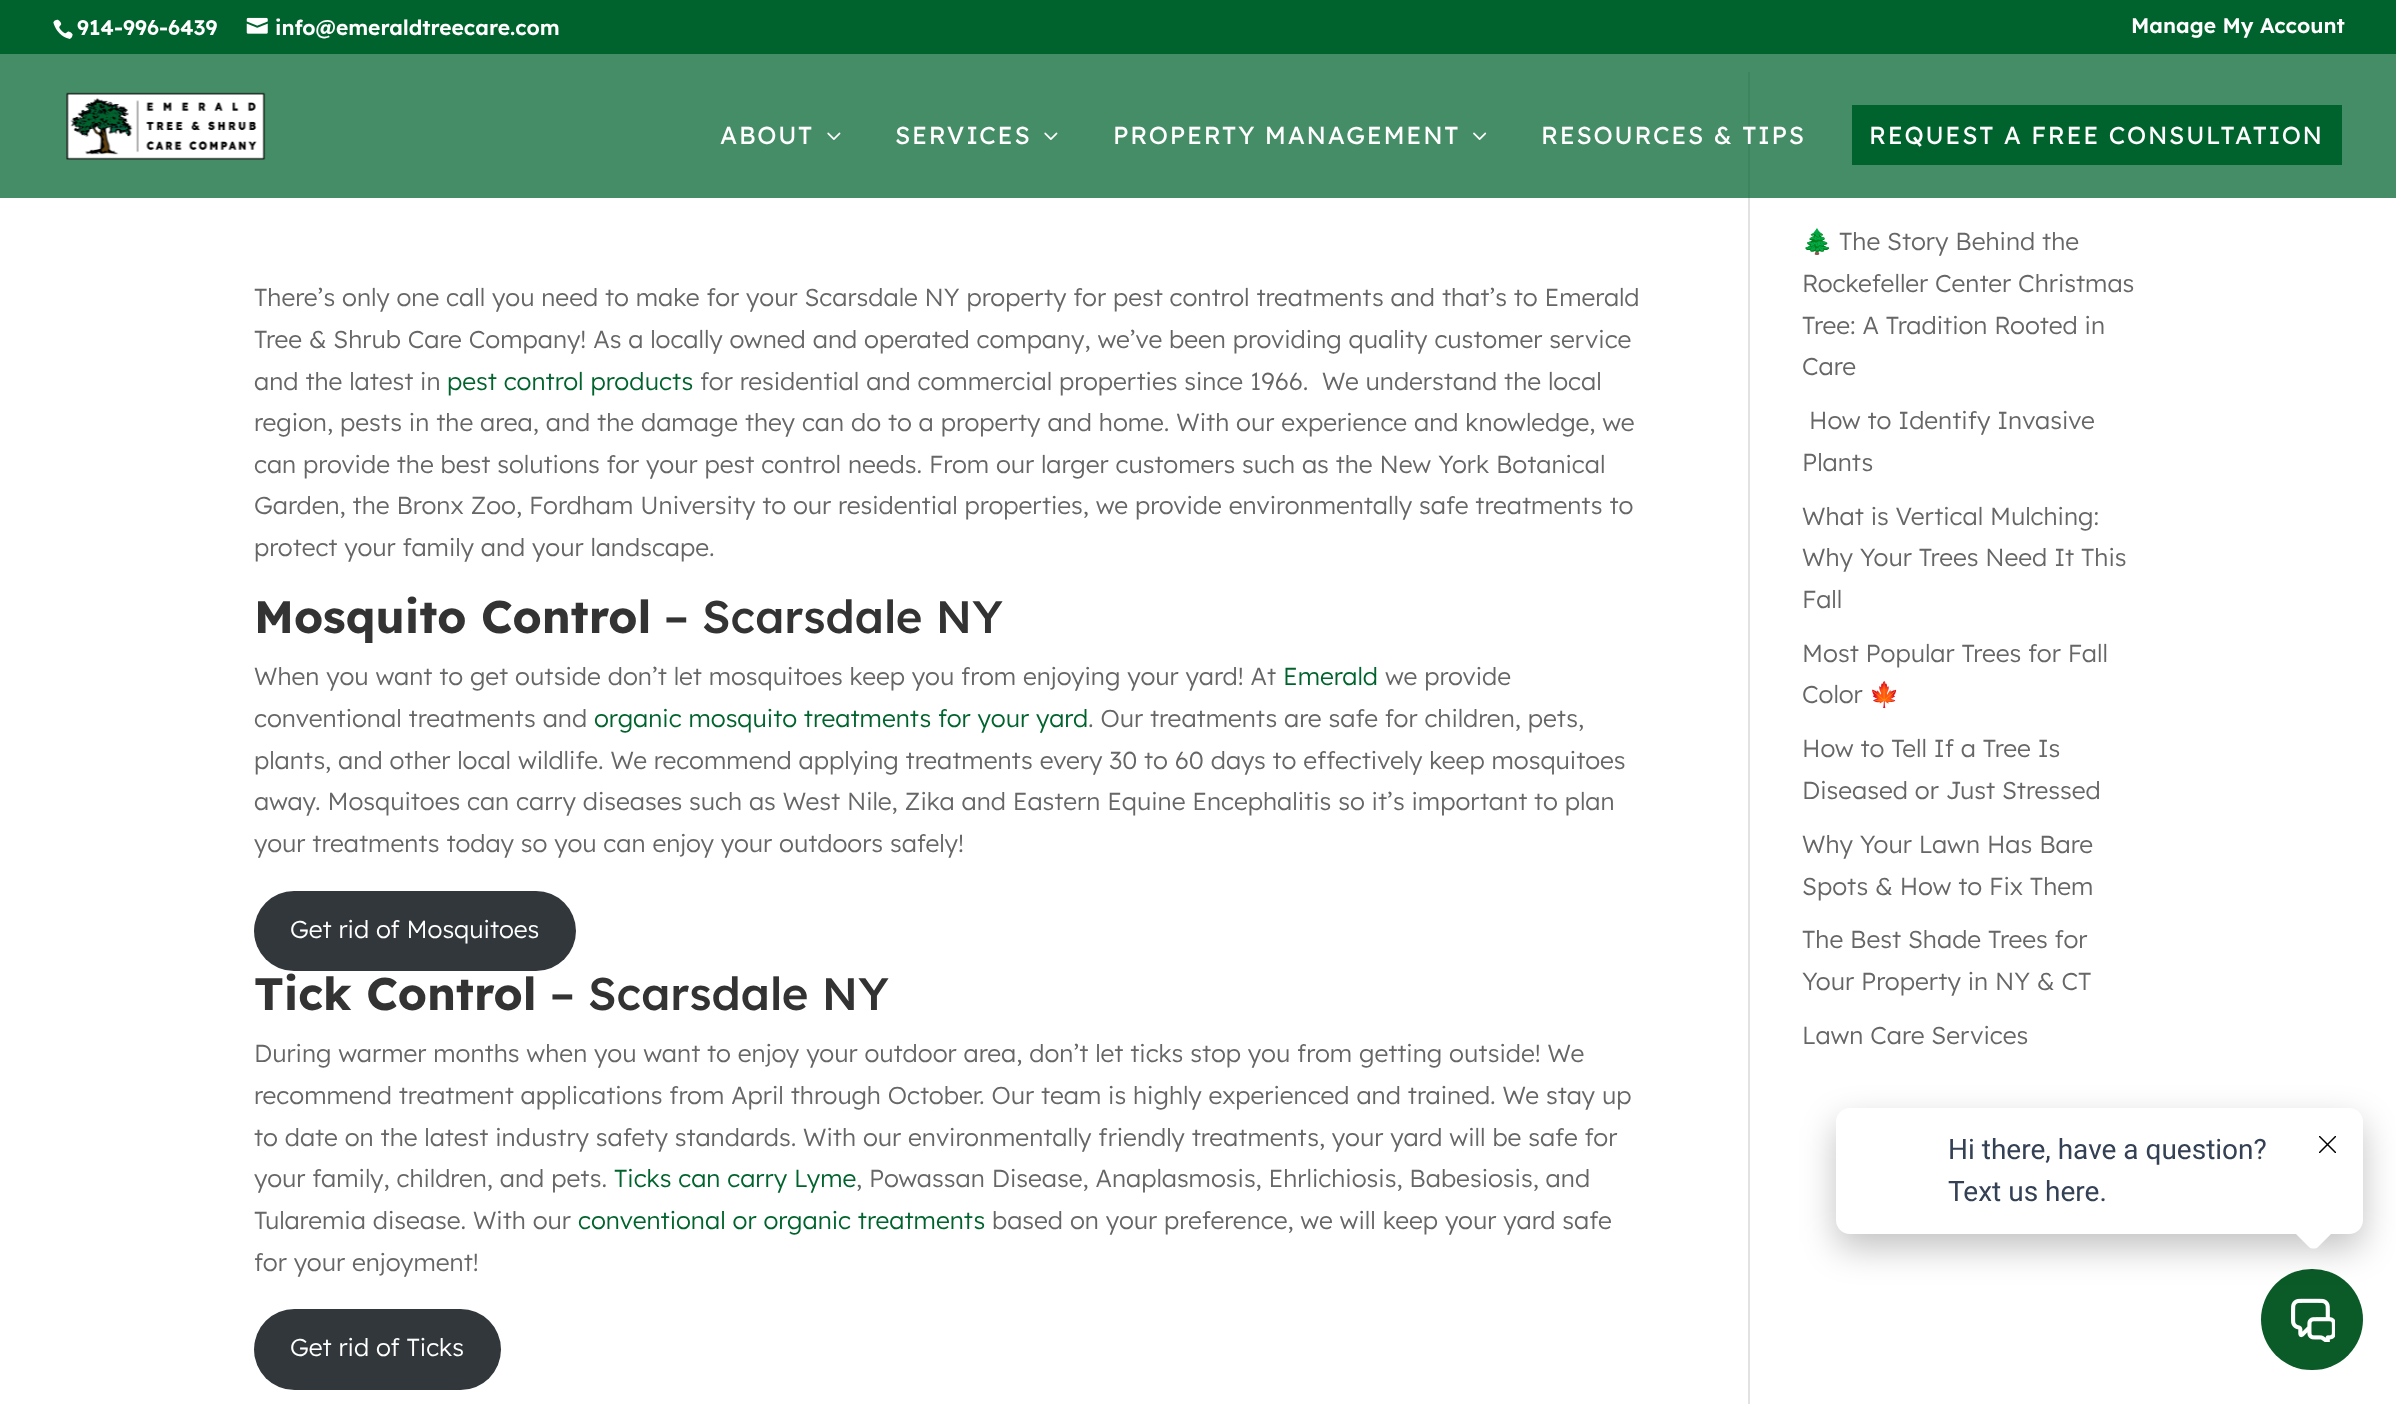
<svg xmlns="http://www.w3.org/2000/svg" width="2396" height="1404">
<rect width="100%" height="100%" fill="#fff"/>
<rect width="2396" height="54" fill="#00632d"/>
<image x="53" y="19" width="20" height="20" href="media/1.png"/>
<text x="77" y="35" style="font-family:Lexend;font-size:21px;font-weight:600;fill:#fff">914-996-6439</text>
<image x="246" y="17" width="22" height="17" href="media/2.png"/>
<text x="275" y="35" style="font-family:Lexend;font-size:21px;font-weight:600;fill:#fff">info@emeraldtreecare.com</text>
<text x="2131" y="33" style="font-family:Lexend;font-size:21px;font-weight:600;fill:#fff">Manage My Account</text>
<rect x="1748" y="72" width="2" height="1332" fill="#e2e2e2"/>
<rect y="54" width="2396" height="144" fill="#00632dba"/>
<image x="66" y="92" width="200" height="68" href="media/3.png"/>
<text x="720" y="144" style="font-family:Lexend;font-size:24.5px;letter-spacing:1.75px;fill:#fff">ABOUT</text>
<image x="827" y="132" width="14" height="8" href="media/4.png"/>
<text x="895" y="144" style="font-family:Lexend;font-size:24.5px;letter-spacing:1.75px;fill:#fff">SERVICES</text>
<image x="1044" y="132" width="14" height="8" href="media/4.png"/>
<text x="1113" y="144" style="font-family:Lexend;font-size:24.5px;letter-spacing:1.75px;fill:#fff">PROPERTY MANAGEMENT</text>
<image x="1473" y="132" width="14" height="8" href="media/5.png"/>
<text x="1541" y="144" style="font-family:Lexend;font-size:24.5px;letter-spacing:1.75px;fill:#fff">RESOURCES &amp; TIPS</text>
<rect x="1852" y="105" width="490" height="60" fill="#00632d"/>
<text x="1869" y="144" style="font-family:Lexend;font-size:24.5px;letter-spacing:1.75px;fill:#fff">REQUEST A FREE CONSULTATION</text>
<text x="254" y="306" style="font-family:Lexend;font-size:24.5px;font-weight:300;fill:#666">There’s only one call you need to make for your Scarsdale NY property for pest control treatments and that’s to Emerald</text>
<text x="254" y="348" style="font-family:Lexend;font-size:24.5px;font-weight:300;fill:#666">Tree &amp; Shrub Care Company! As a locally owned and operated company, we’ve been providing quality customer service</text>
<text x="254" y="390" style="font-family:Lexend;font-size:24.5px;font-weight:300;fill:#666">and the latest in</text>
<text x="447" y="390" style="font-family:Lexend;font-size:24.5px;font-weight:300;fill:#00632d">pest control products</text>
<text x="700" y="390" style="font-family:Lexend;font-size:24.5px;font-weight:300;fill:#666" xml:space="preserve">for residential and commercial properties since 1966.  We understand the local</text>
<text x="254" y="431" style="font-family:Lexend;font-size:24.5px;font-weight:300;fill:#666">region, pests in the area, and the damage they can do to a property and home. With our experience and knowledge, we</text>
<text x="254" y="473" style="font-family:Lexend;font-size:24.5px;font-weight:300;fill:#666">can provide the best solutions for your pest control needs. From our larger customers such as the New York Botanical</text>
<text x="254" y="514" style="font-family:Lexend;font-size:24.5px;font-weight:300;fill:#666">Garden, the Bronx Zoo, Fordham University to our residential properties, we provide environmentally safe treatments to</text>
<text x="254" y="556" style="font-family:Lexend;font-size:24.5px;font-weight:300;fill:#666">protect your family and your landscape.</text>
<text x="254" y="633" style="font-family:Lexend;font-size:45.5px;font-weight:bold;fill:#333">Mosquito Control</text>
<text x="664" y="633" style="font-family:Lexend;font-size:45.5px;font-weight:500;fill:#333">– Scarsdale NY</text>
<text x="254" y="685" style="font-family:Lexend;font-size:24.5px;font-weight:300;fill:#666">When you want to get outside don’t let mosquitoes keep you from enjoying your yard! At</text>
<text x="1283" y="685" style="font-family:Lexend;font-size:24.5px;font-weight:300;fill:#00632d">Emerald</text>
<text x="1385" y="685" style="font-family:Lexend;font-size:24.5px;font-weight:300;fill:#666">we provide</text>
<text x="254" y="727" style="font-family:Lexend;font-size:24.5px;font-weight:300;fill:#666">conventional treatments and</text>
<text x="594" y="727" style="font-family:Lexend;font-size:24.5px;font-weight:300;fill:#00632d">organic mosquito treatments for your yard</text>
<text x="1088" y="727" style="font-family:Lexend;font-size:24.5px;font-weight:300;fill:#666">. Our treatments are safe for children, pets,</text>
<text x="254" y="769" style="font-family:Lexend;font-size:24.5px;font-weight:300;fill:#666">plants, and other local wildlife. We recommend applying treatments every 30 to 60 days to effectively keep mosquitoes</text>
<text x="254" y="810" style="font-family:Lexend;font-size:24.5px;font-weight:300;fill:#666">away. Mosquitoes can carry diseases such as West Nile, Zika and Eastern Equine Encephalitis so it’s important to plan</text>
<text x="254" y="852" style="font-family:Lexend;font-size:24.5px;font-weight:300;fill:#666">your treatments today so you can enjoy your outdoors safely!</text>
<rect x="254" y="891" width="322" height="80" rx="40" fill="#32373c"/>
<text x="290" y="938" style="font-family:Lexend;font-size:24.5px;font-weight:300;fill:#fff">Get rid of Mosquitoes</text>
<text x="254" y="1010" style="font-family:Lexend;font-size:45.5px;font-weight:bold;fill:#333">Tick Control</text>
<text x="550" y="1010" style="font-family:Lexend;font-size:45.5px;font-weight:500;fill:#333">– Scarsdale NY</text>
<text x="254" y="1062" style="font-family:Lexend;font-size:24.5px;font-weight:300;fill:#666">During warmer months when you want to enjoy your outdoor area, don’t let ticks stop you from getting outside! We</text>
<text x="254" y="1104" style="font-family:Lexend;font-size:24.5px;font-weight:300;fill:#666">recommend treatment applications from April through October. Our team is highly experienced and trained. We stay up</text>
<text x="254" y="1146" style="font-family:Lexend;font-size:24.5px;font-weight:300;fill:#666">to date on the latest industry safety standards. With our environmentally friendly treatments, your yard will be safe for</text>
<text x="254" y="1187" style="font-family:Lexend;font-size:24.5px;font-weight:300;fill:#666">your family, children, and pets.</text>
<text x="614" y="1187" style="font-family:Lexend;font-size:24.5px;font-weight:300;fill:#00632d">Ticks can carry Lyme</text>
<text x="856" y="1187" style="font-family:Lexend;font-size:24.5px;font-weight:300;fill:#666">, Powassan Disease, Anaplasmosis, Ehrlichiosis, Babesiosis, and</text>
<text x="254" y="1229" style="font-family:Lexend;font-size:24.5px;font-weight:300;fill:#666">Tularemia disease. With our</text>
<text x="578" y="1229" style="font-family:Lexend;font-size:24.5px;font-weight:300;fill:#00632d">conventional or organic treatments</text>
<text x="992" y="1229" style="font-family:Lexend;font-size:24.5px;font-weight:300;fill:#666">based on your preference, we will keep your yard safe</text>
<text x="254" y="1271" style="font-family:Lexend;font-size:24.5px;font-weight:300;fill:#666">for your enjoyment!</text>
<rect x="254" y="1309" width="247" height="81" rx="40.5" fill="#32373c"/>
<text x="290" y="1356" style="font-family:Lexend;font-size:24.5px;font-weight:300;fill:#fff">Get rid of Ticks</text>
<text x="1802" y="250" style="font-family:Noto Color Emoji;font-size:24.5px;fill:#666">🌲</text>
<text x="1839" y="250" style="font-family:Lexend;font-size:24.5px;font-weight:300;fill:#666">The Story Behind the</text>
<text x="1802" y="292" style="font-family:Lexend;font-size:24.5px;font-weight:300;fill:#666">Rockefeller Center Christmas</text>
<text x="1802" y="334" style="font-family:Lexend;font-size:24.5px;font-weight:300;fill:#666">Tree: A Tradition Rooted in</text>
<text x="1802" y="375" style="font-family:Lexend;font-size:24.5px;font-weight:300;fill:#666">Care</text>
<text x="1809" y="429" style="font-family:Lexend;font-size:24.5px;font-weight:300;fill:#666">How to Identify Invasive</text>
<text x="1802" y="471" style="font-family:Lexend;font-size:24.5px;font-weight:300;fill:#666">Plants</text>
<text x="1802" y="525" style="font-family:Lexend;font-size:24.5px;font-weight:300;fill:#666">What is Vertical Mulching:</text>
<text x="1802" y="566" style="font-family:Lexend;font-size:24.5px;font-weight:300;fill:#666">Why Your Trees Need It This</text>
<text x="1802" y="608" style="font-family:Lexend;font-size:24.5px;font-weight:300;fill:#666">Fall</text>
<text x="1802" y="662" style="font-family:Lexend;font-size:24.5px;font-weight:300;fill:#666">Most Popular Trees for Fall</text>
<text x="1802" y="703" style="font-family:Lexend;font-size:24.5px;font-weight:300;fill:#666">Color</text>
<text x="1869" y="703" style="font-family:Noto Color Emoji;font-size:24.5px;fill:#666">🍁</text>
<text x="1802" y="757" style="font-family:Lexend;font-size:24.5px;font-weight:300;fill:#666">How to Tell If a Tree Is</text>
<text x="1802" y="799" style="font-family:Lexend;font-size:24.5px;font-weight:300;fill:#666">Diseased or Just Stressed</text>
<text x="1802" y="853" style="font-family:Lexend;font-size:24.5px;font-weight:300;fill:#666">Why Your Lawn Has Bare</text>
<text x="1802" y="895" style="font-family:Lexend;font-size:24.5px;font-weight:300;fill:#666">Spots &amp; How to Fix Them</text>
<text x="1802" y="948" style="font-family:Lexend;font-size:24.5px;font-weight:300;fill:#666">The Best Shade Trees for</text>
<text x="1802" y="990" style="font-family:Lexend;font-size:24.5px;font-weight:300;fill:#666">Your Property in NY &amp; CT</text>
<text x="1802" y="1044" style="font-family:Lexend;font-size:24.5px;font-weight:300;fill:#666">Lawn Care Services</text>
<rect x="2261" y="1269" width="102" height="101" rx="50.5" fill="#0b5b28"/>
<image x="2291" y="1298" width="44" height="44" href="media/7.png"/>
<rect x="1836" y="1122" width="527" height="126" rx="14" fill="#0000003d" filter="blur(17.5px)"/>
<rect x="1836" y="1108" width="527" height="126" rx="14" fill="#fff"/>
<text x="1948" y="1159" style="font-family:Roboto;font-size:28px;fill:#344054">Hi there, have a question?</text>
<text x="1948" y="1201" style="font-family:Roboto;font-size:28px;fill:#344054">Text us here.</text>
<path d="M2318 1207l15 15c3 3 3 7 0 10l-15 15c-2 2-7 2-9 0l-15-15c-3-3-3-7 0-10l15-15c2-3 7-3 9 0z" fill="#fff"/>
<image x="2319" y="1136" width="17" height="17" href="media/6.png"/>
</svg>
